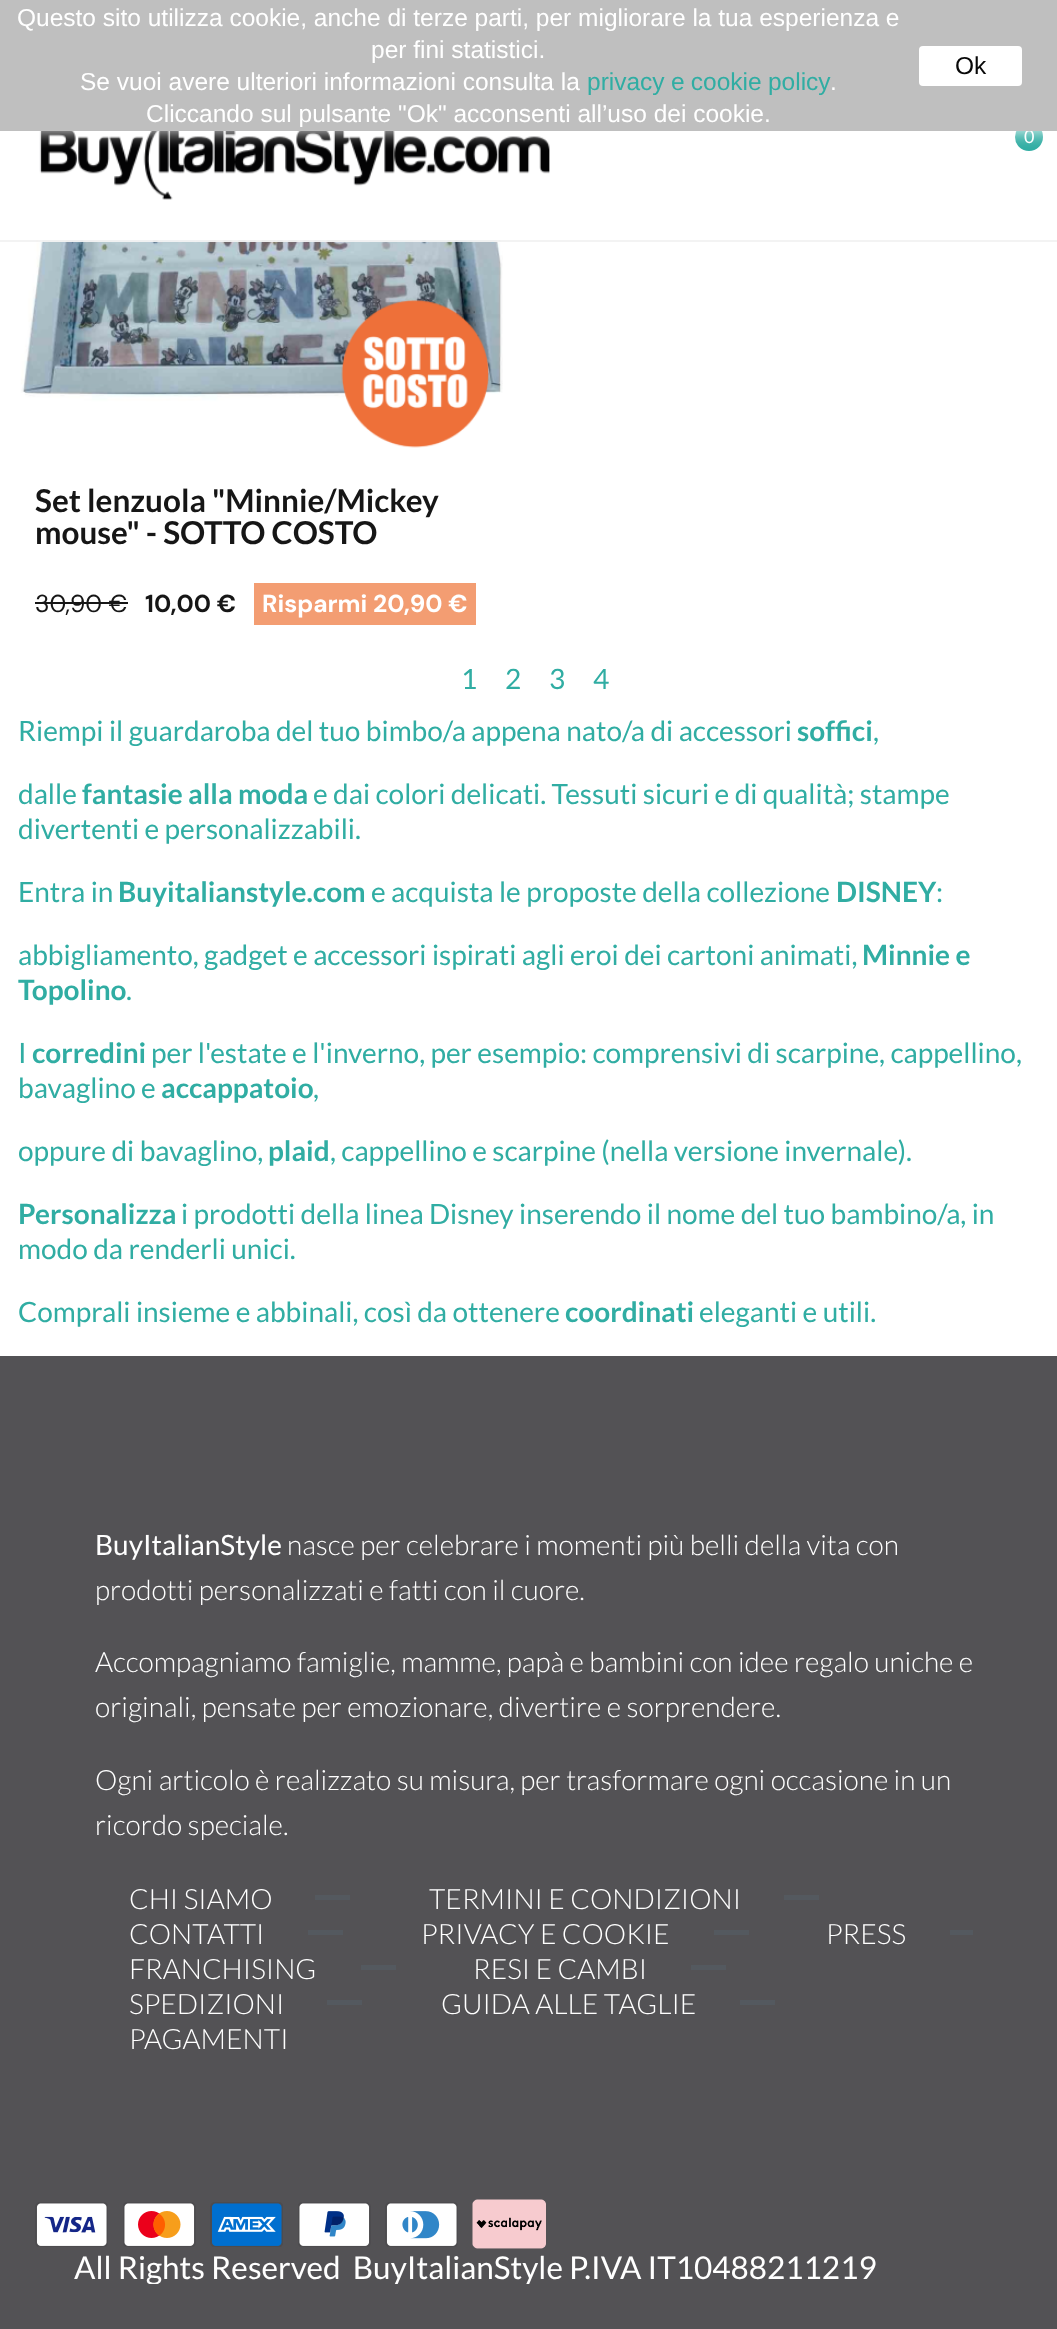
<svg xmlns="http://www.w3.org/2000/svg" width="1057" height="2329">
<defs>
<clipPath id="clip1"><rect x="35" y="2249" width="987" height="35"/></clipPath>
</defs>
<rect width="100%" height="100%" fill="#fff"/>
<image x="39" y="131" width="511" height="69" href="media/1.png"/>
<circle cx="1029" cy="137" r="14" fill="#30ada3"/>
<rect width="1057" height="131" fill="#fff" filter="blur(9px)"/>
<text x="1024" y="143" style="font-family:Lato;font-size:18px;fill:#fff">0</text>
<rect width="1057" height="131" fill="#bfbfbf"/>
<text x="17" y="26" style="font-family:Liberation Sans;font-size:24.5px;fill:#fff">Questo sito utilizza cookie, anche di terze parti, per migliorare la tua esperienza e</text>
<text x="371" y="58" style="font-family:Liberation Sans;font-size:24.5px;fill:#fff">per fini statistici.</text>
<text x="80" y="90" style="font-family:Liberation Sans;font-size:24.5px;fill:#fff">Se vuoi avere ulteriori informazioni consulta la</text>
<text x="587" y="90" word-spacing="-0.5" style="font-family:Liberation Sans;font-size:24.5px;fill:#30ada3">privacy e cookie policy</text>
<text x="830" y="90" style="font-family:Liberation Sans;font-size:24.5px;fill:#fff">.</text>
<text x="146" y="122" style="font-family:Liberation Sans;font-size:24.5px;fill:#fff">Cliccando sul pulsante "Ok" acconsenti all’uso dei cookie.</text>
<rect x="919" y="46" width="103" height="40" rx="4" fill="#fff"/>
<text x="955" y="74" style="font-family:Liberation Sans;font-size:24.5px;fill:#080808">Ok</text>
<image x="20" y="240" width="483" height="208" href="media/2.png"/>
<rect x="38" y="240" width="461" height="2" fill="#fffffff5"/>
<rect y="240" width="1057" height="2" fill="#0c0c0c0d"/>
<text x="35" y="512" style="font-family:Lato;font-size:31.5px;font-weight:bold;fill:#161616">Set lenzuola "Minnie/Mickey</text>
<text x="35" y="544" style="font-family:Lato;font-size:31.5px;font-weight:bold;fill:#161616">mouse" - SOTTO COSTO</text>
<text x="35" y="612" style="font-family:DM Sans;font-size:24.5px;fill:#161616">30,90 €</text>
<rect x="35" y="602" width="93" height="2" fill="#161616"/>
<text x="145" y="612" style="font-family:DM Sans;font-size:24.5px;font-weight:bold;fill:#161616">10,00 €</text>
<rect x="254" y="583" width="222" height="42" fill="#f39d72"/>
<text x="262" y="612" style="font-family:DM Sans;font-size:24.5px;font-weight:bold;fill:#fff">Risparmi 20,90 €</text>
<text x="461" y="689" style="font-family:Lato;font-size:28px;fill:#30ada3">1</text>
<text x="505" y="689" style="font-family:Lato;font-size:28px;fill:#30ada3">2</text>
<text x="549" y="689" style="font-family:Lato;font-size:28px;fill:#30ada3">3</text>
<text x="593" y="689" style="font-family:Lato;font-size:28px;fill:#30ada3">4</text>
<text x="18" y="741" style="font-family:Lato;font-size:28px;fill:#30ada3">Riempi il guardaroba del tuo bimbo/a appena nato/a di accessori</text>
<text x="797" y="741" style="font-family:Lato;font-size:28px;font-weight:bold;fill:#30ada3">soffici</text>
<text x="873" y="741" style="font-family:Lato;font-size:28px;fill:#30ada3">,</text>
<text x="18" y="804" style="font-family:Lato;font-size:28px;fill:#30ada3">dalle</text>
<text x="82" y="804" style="font-family:Lato;font-size:28px;font-weight:bold;fill:#30ada3">fantasie alla moda</text>
<text x="313" y="804" style="font-family:Lato;font-size:28px;fill:#30ada3">e dai colori delicati. Tessuti sicuri e di qualità; stampe</text>
<text x="18" y="839" style="font-family:Lato;font-size:28px;fill:#30ada3">divertenti e personalizzabili.</text>
<text x="18" y="902" style="font-family:Lato;font-size:28px;fill:#30ada3">Entra in</text>
<text x="118" y="902" style="font-family:Lato;font-size:28px;font-weight:bold;fill:#30ada3">Buyitalianstyle.com</text>
<text x="371" y="902" style="font-family:Lato;font-size:28px;fill:#30ada3">e acquista le proposte della collezione</text>
<text x="836" y="902" style="font-family:Lato;font-size:28px;font-weight:bold;fill:#30ada3">DISNEY</text>
<text x="936" y="902" style="font-family:Lato;font-size:28px;fill:#30ada3">:</text>
<text x="18" y="965" style="font-family:Lato;font-size:28px;fill:#30ada3">abbigliamento, gadget e accessori ispirati agli eroi dei cartoni animati,</text>
<text x="862" y="965" style="font-family:Lato;font-size:28px;font-weight:bold;fill:#30ada3">Minnie e</text>
<text x="18" y="1000" style="font-family:Lato;font-size:28px;font-weight:bold;fill:#30ada3">Topolino</text>
<text x="126" y="1000" style="font-family:Lato;font-size:28px;fill:#30ada3">.</text>
<text x="18" y="1063" style="font-family:Lato;font-size:28px;fill:#30ada3">I</text>
<text x="32" y="1063" style="font-family:Lato;font-size:28px;font-weight:bold;fill:#30ada3">corredini</text>
<text x="151" y="1063" style="font-family:Lato;font-size:28px;fill:#30ada3">per l'estate e l'inverno, per esempio: comprensivi di scarpine, cappellino,</text>
<text x="18" y="1098" style="font-family:Lato;font-size:28px;fill:#30ada3">bavaglino e</text>
<text x="161" y="1098" style="font-family:Lato;font-size:28px;font-weight:bold;fill:#30ada3">accappatoio</text>
<text x="313" y="1098" style="font-family:Lato;font-size:28px;fill:#30ada3">,</text>
<text x="18" y="1161" style="font-family:Lato;font-size:28px;fill:#30ada3">oppure di bavaglino,</text>
<text x="268" y="1161" style="font-family:Lato;font-size:28px;font-weight:bold;fill:#30ada3">plaid</text>
<text x="330" y="1161" style="font-family:Lato;font-size:28px;fill:#30ada3">, cappellino e scarpine (nella versione invernale).</text>
<text x="18" y="1224" style="font-family:Lato;font-size:28px;font-weight:bold;fill:#30ada3">Personalizza</text>
<text x="181" y="1224" style="font-family:Lato;font-size:28px;fill:#30ada3">i prodotti della linea Disney inserendo il nome del tuo bambino/a, in</text>
<text x="18" y="1259" style="font-family:Lato;font-size:28px;fill:#30ada3">modo da renderli unici.</text>
<text x="18" y="1322" style="font-family:Lato;font-size:28px;fill:#30ada3">Comprali insieme e abbinali, così da ottenere</text>
<text x="565" y="1322" style="font-family:Lato;font-size:28px;font-weight:bold;fill:#30ada3">coordinati</text>
<text x="699" y="1322" style="font-family:Lato;font-size:28px;fill:#30ada3">eleganti e utili.</text>
<rect y="1356" width="1057" height="973" fill="#535255"/>
<text x="95" y="1555" style="font-family:Lato;font-size:28px;fill:#fff">BuyItalianStyle</text>
<text x="287" y="1555" style="font-family:Lato;font-size:28px;font-weight:300;fill:#fff">nasce per celebrare i momenti più belli della vita con</text>
<text x="95" y="1600" style="font-family:Lato;font-size:28px;font-weight:300;fill:#fff">prodotti personalizzati e fatti con il cuore.</text>
<text x="95" y="1672" style="font-family:Lato;font-size:28px;font-weight:300;fill:#fff">Accompagniamo famiglie, mamme, papà e bambini con idee regalo uniche e</text>
<text x="95" y="1717" style="font-family:Lato;font-size:28px;font-weight:300;fill:#fff">originali, pensate per emozionare, divertire e sorprendere.</text>
<text x="95" y="1790" style="font-family:Lato;font-size:28px;font-weight:300;fill:#fff">Ogni articolo è realizzato su misura, per trasformare ogni occasione in un</text>
<text x="95" y="1835" style="font-family:Lato;font-size:28px;font-weight:300;fill:#fff">ricordo speciale.</text>
<text x="129" y="1909" style="font-family:Lato;font-size:28px;font-weight:300;fill:#fff">CHI SIAMO</text>
<rect x="315" y="1895" width="35" height="5" fill="#54595f"/>
<text x="429" y="1909" style="font-family:Lato;font-size:28px;font-weight:300;fill:#fff">TERMINI E CONDIZIONI</text>
<rect x="784" y="1895" width="35" height="5" fill="#54595f"/>
<text x="129" y="1944" style="font-family:Lato;font-size:28px;font-weight:300;fill:#fff">CONTATTI</text>
<rect x="308" y="1930" width="35" height="5" fill="#54595f"/>
<text x="421" y="1944" style="font-family:Lato;font-size:28px;font-weight:300;fill:#fff">PRIVACY E COOKIE</text>
<rect x="714" y="1930" width="35" height="5" fill="#54595f"/>
<text x="826" y="1944" style="font-family:Lato;font-size:28px;font-weight:300;fill:#fff">PRESS</text>
<rect x="950" y="1930" width="23" height="5" fill="#54595f"/>
<text x="129" y="1979" style="font-family:Lato;font-size:28px;font-weight:300;fill:#fff">FRANCHISING</text>
<rect x="361" y="1965" width="35" height="5" fill="#54595f"/>
<text x="473" y="1979" style="font-family:Lato;font-size:28px;font-weight:300;fill:#fff">RESI E CAMBI</text>
<rect x="691" y="1965" width="35" height="5" fill="#54595f"/>
<text x="129" y="2014" style="font-family:Lato;font-size:28px;font-weight:300;fill:#fff">SPEDIZIONI</text>
<rect x="327" y="2000" width="35" height="5" fill="#54595f"/>
<text x="441" y="2014" style="font-family:Lato;font-size:28px;font-weight:300;fill:#fff">GUIDA ALLE TAGLIE</text>
<rect x="740" y="2000" width="35" height="5" fill="#54595f"/>
<text x="129" y="2049" style="font-family:Lato;font-size:28px;font-weight:300;fill:#fff">PAGAMENTI</text>
<image x="35" y="2202" width="73" height="45" href="media/3.png"/>
<image x="123" y="2202" width="73" height="45" href="media/4.png"/>
<image x="210" y="2202" width="73" height="45" href="media/5.png"/>
<image x="298" y="2202" width="73" height="45" href="media/6.png"/>
<image x="385" y="2202" width="73" height="45" href="media/7.png"/>
<image x="472" y="2199" width="74" height="50" href="media/8.png"/>
<g clip-path="url(#clip1)">
<text x="74" y="2279" style="font-family:Lato;font-size:31.5px;fill:#fff" xml:space="preserve">All Rights Reserved  BuyItalianStyle P.IVA IT10488211219</text>
</g>
</svg>
